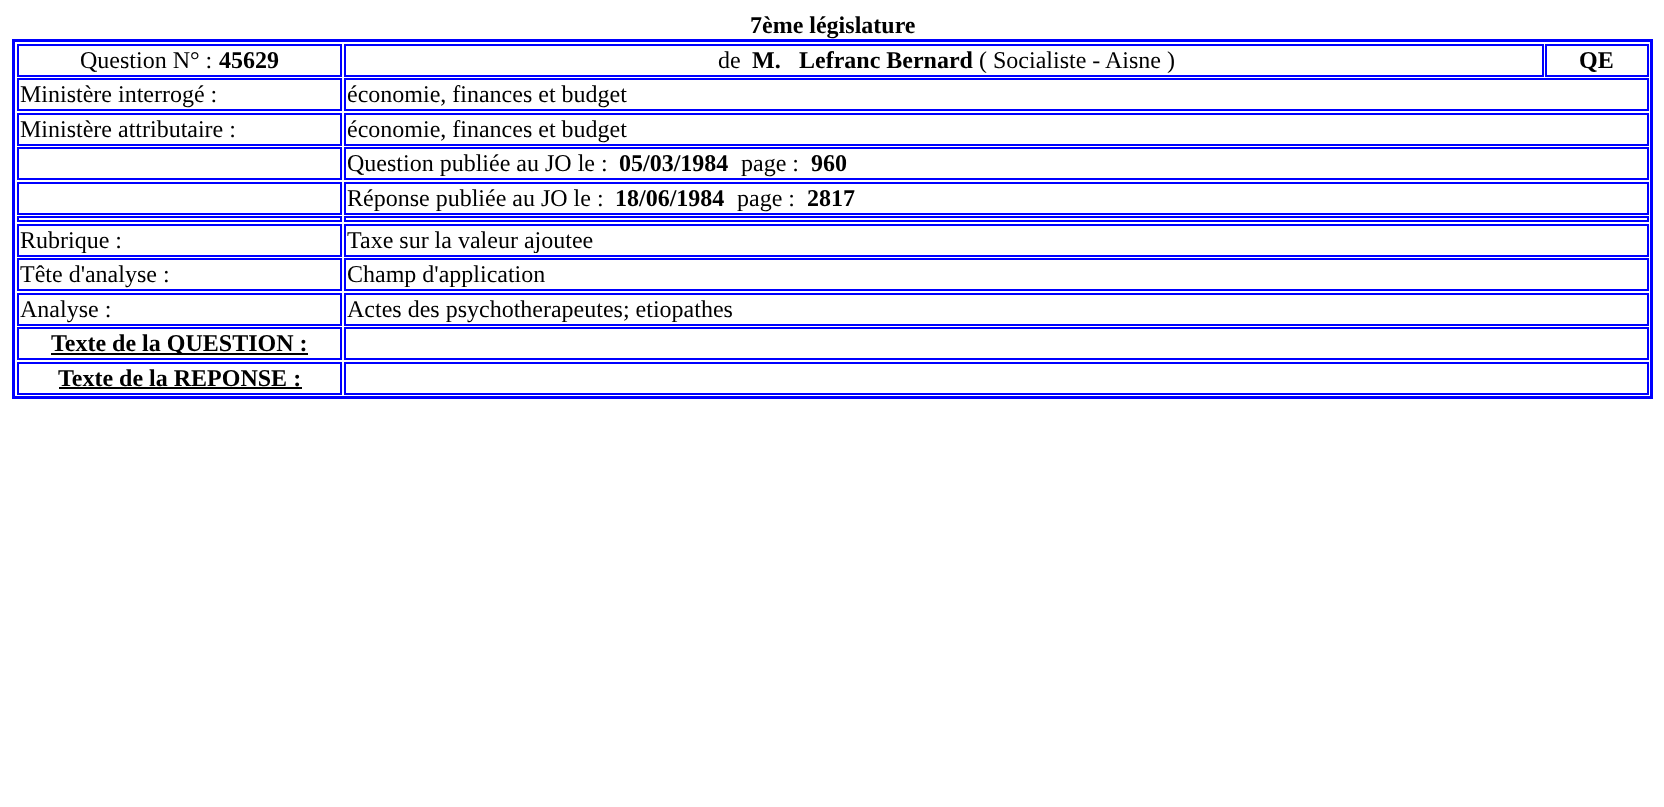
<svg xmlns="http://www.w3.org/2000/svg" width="1664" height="807">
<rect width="100%" height="100%" fill="#fff"/>
<text x="750" y="33" style="font-family:Liberation Serif;font-size:24px;font-weight:bold;fill:#000">7ème législature</text>
<rect x="13.5" y="40.5" width="1638" height="357" fill="none" stroke="#00f" stroke-width="3"/>
<rect x="18" y="45" width="323" height="31" fill="none" stroke="#00f" stroke-width="2"/>
<text x="80" y="68" style="font-family:Liberation Serif;font-size:24px;fill:#000">Question N° :</text>
<text x="219" y="68" style="font-family:Liberation Serif;font-size:24px;font-weight:bold;fill:#000">45629</text>
<rect x="345" y="45" width="1198" height="31" fill="none" stroke="#00f" stroke-width="2"/>
<text x="718" y="68" style="font-family:Liberation Serif;font-size:24px;fill:#000">de</text>
<text x="752" y="68" style="font-family:Liberation Serif;font-size:24px;font-weight:bold;fill:#000">M.</text>
<text x="799" y="68" style="font-family:Liberation Serif;font-size:24px;font-weight:bold;fill:#000">Lefranc Bernard</text>
<text x="979" y="68" style="font-family:Liberation Serif;font-size:24px;fill:#000">( Socialiste -</text>
<text x="1105" y="68" style="font-family:Liberation Serif;font-size:24px;fill:#000">Aisne )</text>
<rect x="1546" y="45" width="102" height="31" fill="none" stroke="#00f" stroke-width="2"/>
<text x="1579" y="68" style="font-family:Liberation Serif;font-size:24px;font-weight:bold;fill:#000">QE</text>
<rect x="18" y="79" width="323" height="31" fill="none" stroke="#00f" stroke-width="2"/>
<text x="20" y="102" style="font-family:Liberation Serif;font-size:24px;fill:#000">Ministère interrogé :</text>
<rect x="345" y="79" width="1303" height="31" fill="none" stroke="#00f" stroke-width="2"/>
<text x="347" y="102" style="font-family:Liberation Serif;font-size:24px;fill:#000">économie, finances et budget</text>
<rect x="18" y="114" width="323" height="31" fill="none" stroke="#00f" stroke-width="2"/>
<text x="20" y="137" style="font-family:Liberation Serif;font-size:24px;fill:#000">Ministère attributaire :</text>
<rect x="345" y="114" width="1303" height="31" fill="none" stroke="#00f" stroke-width="2"/>
<text x="347" y="137" style="font-family:Liberation Serif;font-size:24px;fill:#000">économie, finances et budget</text>
<rect x="18" y="148" width="323" height="31" fill="none" stroke="#00f" stroke-width="2"/>
<rect x="345" y="148" width="1303" height="31" fill="none" stroke="#00f" stroke-width="2"/>
<text x="347" y="171" style="font-family:Liberation Serif;font-size:24px;fill:#000">Question publiée au JO le :</text>
<text x="619" y="171" style="font-family:Liberation Serif;font-size:24px;font-weight:bold;fill:#000">05/03/1984</text>
<text x="741" y="171" style="font-family:Liberation Serif;font-size:24px;fill:#000">page :</text>
<text x="811" y="171" style="font-family:Liberation Serif;font-size:24px;font-weight:bold;fill:#000">960</text>
<rect x="18" y="183" width="323" height="31" fill="none" stroke="#00f" stroke-width="2"/>
<rect x="345" y="183" width="1303" height="31" fill="none" stroke="#00f" stroke-width="2"/>
<text x="347" y="206" style="font-family:Liberation Serif;font-size:24px;fill:#000">Réponse publiée au JO le :</text>
<text x="615" y="206" style="font-family:Liberation Serif;font-size:24px;font-weight:bold;fill:#000">18/06/1984</text>
<text x="737" y="206" style="font-family:Liberation Serif;font-size:24px;fill:#000">page :</text>
<text x="807" y="206" style="font-family:Liberation Serif;font-size:24px;font-weight:bold;fill:#000">2817</text>
<rect x="18" y="217" width="323" height="4" fill="none" stroke="#00f" stroke-width="2"/>
<rect x="345" y="217" width="1303" height="4" fill="none" stroke="#00f" stroke-width="2"/>
<rect x="18" y="225" width="323" height="31" fill="none" stroke="#00f" stroke-width="2"/>
<text x="20" y="248" style="font-family:Liberation Serif;font-size:24px;fill:#000">Rubrique :</text>
<rect x="345" y="225" width="1303" height="31" fill="none" stroke="#00f" stroke-width="2"/>
<text x="347" y="248" style="font-family:Liberation Serif;font-size:24px;fill:#000">Taxe sur la valeur ajoutee</text>
<rect x="18" y="259" width="323" height="31" fill="none" stroke="#00f" stroke-width="2"/>
<text x="20" y="282" style="font-family:Liberation Serif;font-size:24px;fill:#000">Tête d'analyse :</text>
<rect x="345" y="259" width="1303" height="31" fill="none" stroke="#00f" stroke-width="2"/>
<text x="347" y="282" style="font-family:Liberation Serif;font-size:24px;fill:#000">Champ d'application</text>
<rect x="18" y="294" width="323" height="31" fill="none" stroke="#00f" stroke-width="2"/>
<text x="20" y="317" style="font-family:Liberation Serif;font-size:24px;fill:#000">Analyse :</text>
<rect x="345" y="294" width="1303" height="31" fill="none" stroke="#00f" stroke-width="2"/>
<text x="347" y="317" style="font-family:Liberation Serif;font-size:24px;fill:#000">Actes des psychotherapeutes; etiopathes</text>
<rect x="18" y="328" width="323" height="31" fill="none" stroke="#00f" stroke-width="2"/>
<rect x="51" y="353" width="257" height="2" fill="#000"/>
<text x="51" y="351" style="font-family:Liberation Serif;font-size:24px;font-weight:bold;fill:#000">Texte de la QUESTION :</text>
<rect x="345" y="328" width="1303" height="31" fill="none" stroke="#00f" stroke-width="2"/>
<rect x="18" y="363" width="323" height="31" fill="none" stroke="#00f" stroke-width="2"/>
<text x="58" y="386" style="font-family:Liberation Serif;font-size:24px;font-weight:bold;fill:#000">Texte de la REPONSE :</text>
<rect x="59" y="387" width="243" height="2" fill="#000"/>
<rect x="345" y="363" width="1303" height="31" fill="none" stroke="#00f" stroke-width="2"/>
</svg>
